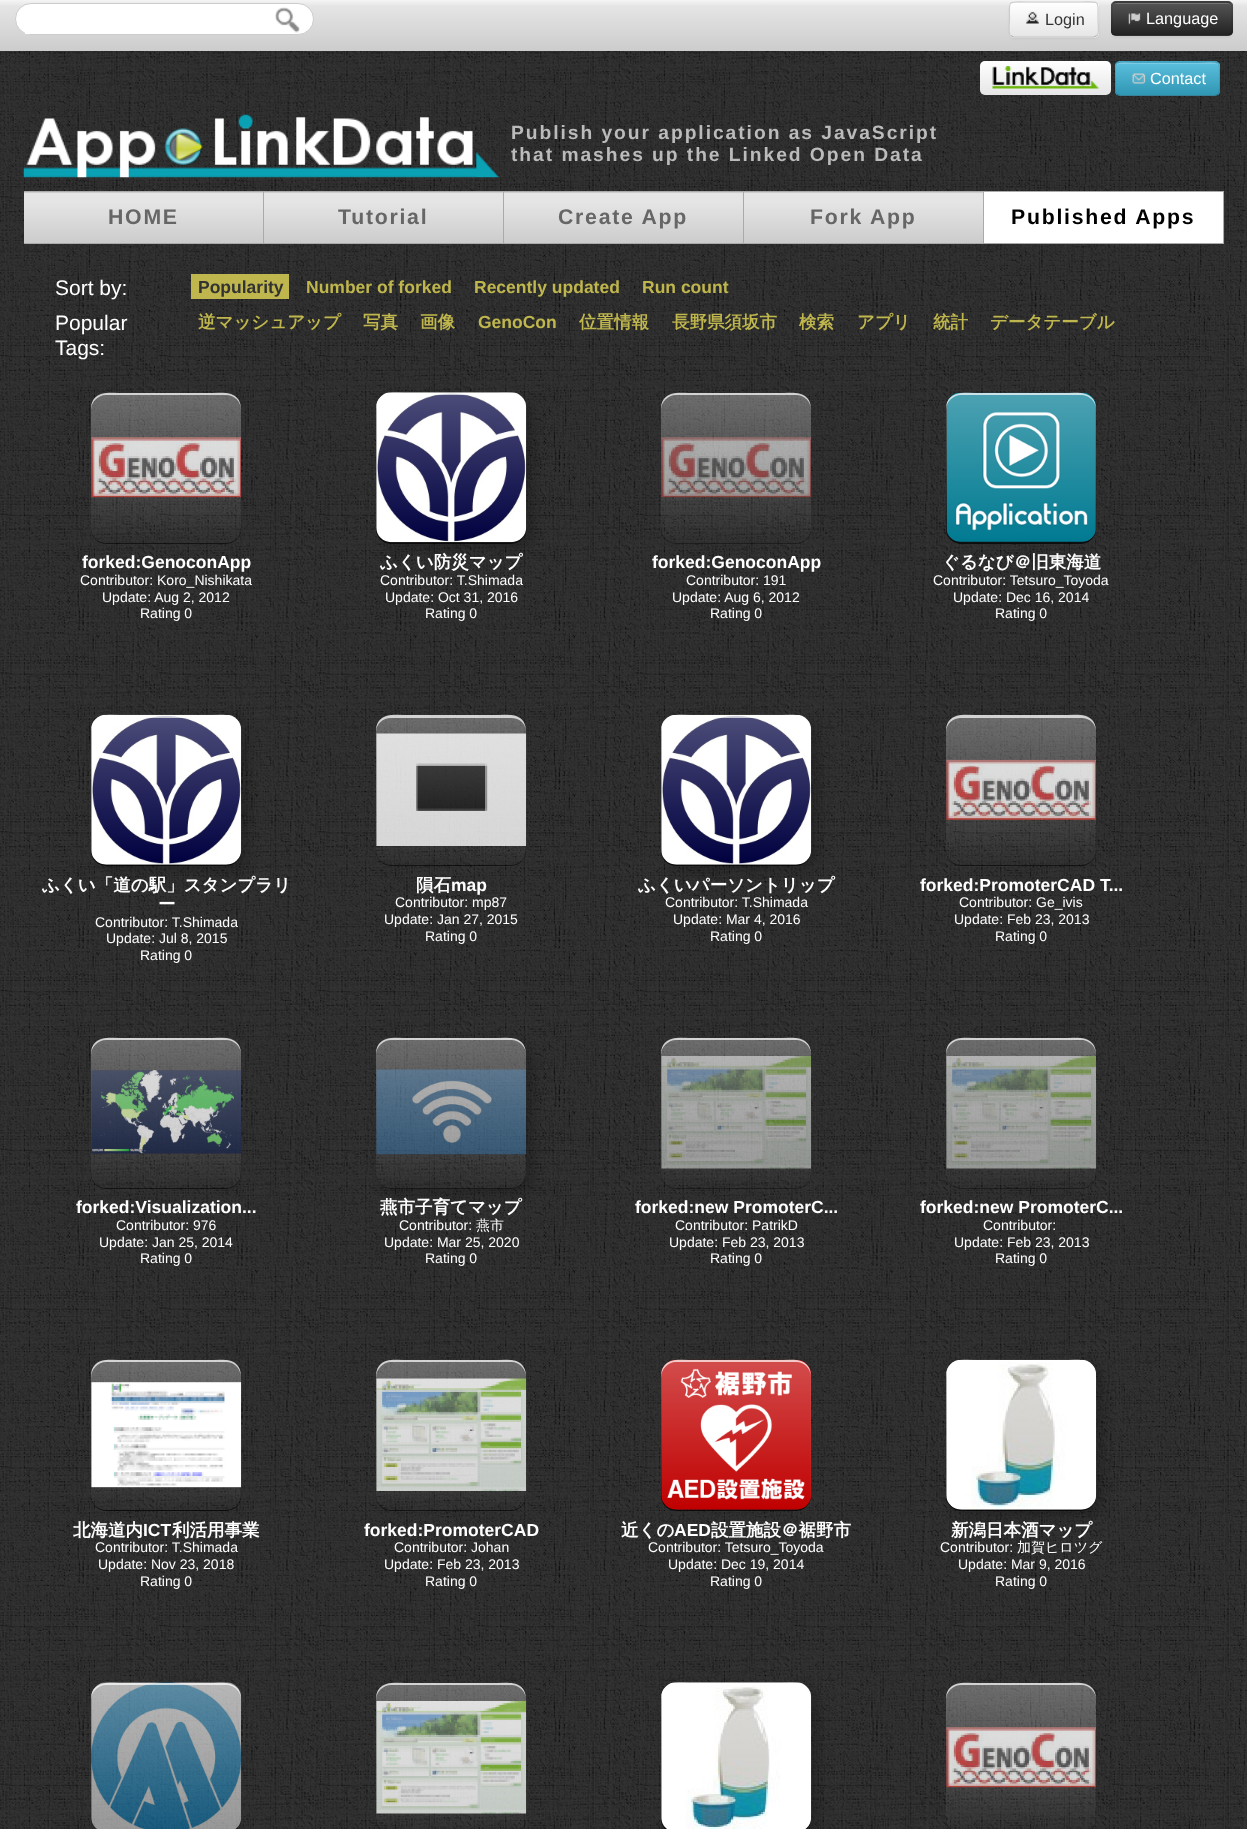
<svg xmlns="http://www.w3.org/2000/svg" width="1247" height="1829">
<defs>
<linearGradient id="g1" gradientUnits="userSpaceOnUse" x1="624" y1="-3.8" x2="624" y2="51"><stop offset="0" stop-color="#fff"/><stop offset="0.18" stop-color="#e5e5e5"/><stop offset="1" stop-color="#ccc"/></linearGradient>
<clipPath id="clip1"><rect x="1009" y="1" width="90" height="37" rx="5"/></clipPath>
<linearGradient id="g2" gradientUnits="userSpaceOnUse" x1="1054" y1="2.5" x2="1054" y2="36"><stop offset="0" stop-color="#fff"/><stop offset="1" stop-color="#e6e6e6"/></linearGradient>
<clipPath id="clip2"><rect x="1111" y="1" width="122" height="35" rx="5"/></clipPath>
<linearGradient id="g3" gradientUnits="userSpaceOnUse" x1="1172" y1="2.5" x2="1172" y2="35"><stop offset="0" stop-color="#555"/><stop offset="1" stop-color="#222"/></linearGradient>
<linearGradient id="g4" gradientUnits="userSpaceOnUse" x1="1046" y1="61" x2="1046" y2="95"><stop offset="0" stop-color="#fff"/><stop offset="1" stop-color="#e6e6e6"/></linearGradient>
<clipPath id="clip3"><rect x="1115" y="61" width="105" height="35" rx="5"/></clipPath>
<linearGradient id="g5" gradientUnits="userSpaceOnUse" x1="1168" y1="62" x2="1168" y2="95"><stop offset="0" stop-color="#5bc0de"/><stop offset="1" stop-color="#2f96b4"/></linearGradient>
<linearGradient id="g6" gradientUnits="userSpaceOnUse" x1="143" y1="142" x2="143" y2="193"><stop offset="0.18" stop-color="#e5e5e5"/><stop offset="1" stop-color="#ccc"/></linearGradient>
<linearGradient id="g7" gradientUnits="userSpaceOnUse" x1="143" y1="193" x2="143" y2="243"><stop offset="0.18" stop-color="#e5e5e5"/><stop offset="1" stop-color="#ccc"/></linearGradient>
<linearGradient id="g8" gradientUnits="userSpaceOnUse" x1="383" y1="142" x2="383" y2="193"><stop offset="0.18" stop-color="#e5e5e5"/><stop offset="1" stop-color="#ccc"/></linearGradient>
<linearGradient id="g9" gradientUnits="userSpaceOnUse" x1="383" y1="193" x2="383" y2="243"><stop offset="0.18" stop-color="#e5e5e5"/><stop offset="1" stop-color="#ccc"/></linearGradient>
<linearGradient id="g10" gradientUnits="userSpaceOnUse" x1="623" y1="142" x2="623" y2="193"><stop offset="0.18" stop-color="#e5e5e5"/><stop offset="1" stop-color="#ccc"/></linearGradient>
<linearGradient id="g11" gradientUnits="userSpaceOnUse" x1="623" y1="193" x2="623" y2="243"><stop offset="0.18" stop-color="#e5e5e5"/><stop offset="1" stop-color="#ccc"/></linearGradient>
<linearGradient id="g12" gradientUnits="userSpaceOnUse" x1="863" y1="142" x2="863" y2="193"><stop offset="0.18" stop-color="#e5e5e5"/><stop offset="1" stop-color="#ccc"/></linearGradient>
<linearGradient id="g13" gradientUnits="userSpaceOnUse" x1="863" y1="193" x2="863" y2="243"><stop offset="0.18" stop-color="#e5e5e5"/><stop offset="1" stop-color="#ccc"/></linearGradient>
<clipPath id="clip4"><path d="M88 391h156v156h-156zm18 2h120c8.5 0 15 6.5 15 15v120c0 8.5-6.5 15-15 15h-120c-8.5 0-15-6.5-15-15v-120c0-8.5 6.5-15 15-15z" clip-rule="evenodd"/></clipPath>
<linearGradient id="g14" gradientUnits="userSpaceOnUse" x1="91" y1="393" x2="91" y2="543"><stop offset="0" stop-color="#fff" stop-opacity="0.3"/><stop offset="1" stop-color="#fff" stop-opacity="0"/></linearGradient>
<linearGradient id="g15" gradientUnits="userSpaceOnUse" x1="376" y1="393" x2="376" y2="543"><stop offset="0" stop-color="#fff" stop-opacity="0.3"/><stop offset="1" stop-color="#fff" stop-opacity="0"/></linearGradient>
<clipPath id="clip5"><path d="M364 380h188v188h-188zm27 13h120c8.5 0 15 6.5 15 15v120c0 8.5-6.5 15-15 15h-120c-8.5 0-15-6.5-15-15v-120c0-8.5 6.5-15 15-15z" clip-rule="evenodd"/></clipPath>
<clipPath id="clip6"><path d="M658 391h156v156h-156zm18 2h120c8.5 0 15 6.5 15 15v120c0 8.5-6.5 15-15 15h-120c-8.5 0-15-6.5-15-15v-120c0-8.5 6.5-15 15-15z" clip-rule="evenodd"/></clipPath>
<linearGradient id="g16" gradientUnits="userSpaceOnUse" x1="661" y1="393" x2="661" y2="543"><stop offset="0" stop-color="#fff" stop-opacity="0.3"/><stop offset="1" stop-color="#fff" stop-opacity="0"/></linearGradient>
<linearGradient id="g17" gradientUnits="userSpaceOnUse" x1="946" y1="393" x2="946" y2="543"><stop offset="0" stop-color="#fff" stop-opacity="0.3"/><stop offset="1" stop-color="#fff" stop-opacity="0"/></linearGradient>
<linearGradient id="g18" gradientUnits="userSpaceOnUse" x1="91" y1="715" x2="91" y2="865"><stop offset="0" stop-color="#fff" stop-opacity="0.3"/><stop offset="1" stop-color="#fff" stop-opacity="0"/></linearGradient>
<clipPath id="clip7"><path d="M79 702h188v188h-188zm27 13h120c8.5 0 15 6.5 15 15v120c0 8.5-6.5 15-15 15h-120c-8.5 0-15-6.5-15-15v-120c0-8.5 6.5-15 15-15z" clip-rule="evenodd"/></clipPath>
<clipPath id="clip8"><path d="M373 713h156v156h-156zm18 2h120c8.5 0 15 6.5 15 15v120c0 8.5-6.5 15-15 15h-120c-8.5 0-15-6.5-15-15v-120c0-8.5 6.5-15 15-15z" clip-rule="evenodd"/></clipPath>
<linearGradient id="g19" gradientUnits="userSpaceOnUse" x1="376" y1="715" x2="376" y2="865"><stop offset="0" stop-color="#fff" stop-opacity="0.3"/><stop offset="1" stop-color="#fff" stop-opacity="0"/></linearGradient>
<linearGradient id="g20" gradientUnits="userSpaceOnUse" x1="661" y1="715" x2="661" y2="865"><stop offset="0" stop-color="#fff" stop-opacity="0.3"/><stop offset="1" stop-color="#fff" stop-opacity="0"/></linearGradient>
<clipPath id="clip9"><path d="M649 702h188v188h-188zm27 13h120c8.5 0 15 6.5 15 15v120c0 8.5-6.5 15-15 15h-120c-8.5 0-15-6.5-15-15v-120c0-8.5 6.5-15 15-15z" clip-rule="evenodd"/></clipPath>
<clipPath id="clip10"><path d="M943 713h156v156h-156zm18 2h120c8.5 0 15 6.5 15 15v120c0 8.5-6.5 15-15 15h-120c-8.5 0-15-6.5-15-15v-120c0-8.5 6.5-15 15-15z" clip-rule="evenodd"/></clipPath>
<linearGradient id="g21" gradientUnits="userSpaceOnUse" x1="946" y1="715" x2="946" y2="865"><stop offset="0" stop-color="#fff" stop-opacity="0.3"/><stop offset="1" stop-color="#fff" stop-opacity="0"/></linearGradient>
<clipPath id="clip11"><path d="M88 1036h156v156h-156zm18 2h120c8.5 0 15 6.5 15 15v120c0 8.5-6.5 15-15 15h-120c-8.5 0-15-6.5-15-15v-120c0-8.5 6.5-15 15-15z" clip-rule="evenodd"/></clipPath>
<linearGradient id="g22" gradientUnits="userSpaceOnUse" x1="91" y1="1038" x2="91" y2="1188"><stop offset="0" stop-color="#fff" stop-opacity="0.3"/><stop offset="1" stop-color="#fff" stop-opacity="0"/></linearGradient>
<clipPath id="clip12"><path d="M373 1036h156v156h-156zm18 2h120c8.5 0 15 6.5 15 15v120c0 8.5-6.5 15-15 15h-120c-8.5 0-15-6.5-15-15v-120c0-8.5 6.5-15 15-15z" clip-rule="evenodd"/></clipPath>
<linearGradient id="g23" gradientUnits="userSpaceOnUse" x1="376" y1="1038" x2="376" y2="1188"><stop offset="0" stop-color="#fff" stop-opacity="0.3"/><stop offset="1" stop-color="#fff" stop-opacity="0"/></linearGradient>
<clipPath id="clip13"><path d="M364 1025h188v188h-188zm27 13h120c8.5 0 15 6.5 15 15v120c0 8.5-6.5 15-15 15h-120c-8.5 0-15-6.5-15-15v-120c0-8.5 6.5-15 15-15z" clip-rule="evenodd"/></clipPath>
<clipPath id="clip14"><path d="M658 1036h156v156h-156zm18 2h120c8.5 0 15 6.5 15 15v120c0 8.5-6.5 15-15 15h-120c-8.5 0-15-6.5-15-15v-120c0-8.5 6.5-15 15-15z" clip-rule="evenodd"/></clipPath>
<linearGradient id="g24" gradientUnits="userSpaceOnUse" x1="661" y1="1038" x2="661" y2="1188"><stop offset="0" stop-color="#fff" stop-opacity="0.3"/><stop offset="1" stop-color="#fff" stop-opacity="0"/></linearGradient>
<clipPath id="clip15"><path d="M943 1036h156v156h-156zm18 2h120c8.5 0 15 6.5 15 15v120c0 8.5-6.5 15-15 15h-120c-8.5 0-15-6.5-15-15v-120c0-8.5 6.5-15 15-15z" clip-rule="evenodd"/></clipPath>
<linearGradient id="g25" gradientUnits="userSpaceOnUse" x1="946" y1="1038" x2="946" y2="1188"><stop offset="0" stop-color="#fff" stop-opacity="0.3"/><stop offset="1" stop-color="#fff" stop-opacity="0"/></linearGradient>
<clipPath id="clip16"><path d="M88 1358h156v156h-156zm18 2h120c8.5 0 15 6.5 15 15v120c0 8.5-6.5 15-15 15h-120c-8.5 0-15-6.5-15-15v-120c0-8.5 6.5-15 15-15z" clip-rule="evenodd"/></clipPath>
<linearGradient id="g26" gradientUnits="userSpaceOnUse" x1="91" y1="1360" x2="91" y2="1510"><stop offset="0" stop-color="#fff" stop-opacity="0.3"/><stop offset="1" stop-color="#fff" stop-opacity="0"/></linearGradient>
<clipPath id="clip17"><path d="M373 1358h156v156h-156zm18 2h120c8.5 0 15 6.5 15 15v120c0 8.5-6.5 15-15 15h-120c-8.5 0-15-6.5-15-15v-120c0-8.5 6.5-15 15-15z" clip-rule="evenodd"/></clipPath>
<linearGradient id="g27" gradientUnits="userSpaceOnUse" x1="376" y1="1360" x2="376" y2="1510"><stop offset="0" stop-color="#fff" stop-opacity="0.3"/><stop offset="1" stop-color="#fff" stop-opacity="0"/></linearGradient>
<linearGradient id="g28" gradientUnits="userSpaceOnUse" x1="661" y1="1360" x2="661" y2="1510"><stop offset="0" stop-color="#fff" stop-opacity="0.3"/><stop offset="1" stop-color="#fff" stop-opacity="0"/></linearGradient>
<linearGradient id="g29" gradientUnits="userSpaceOnUse" x1="946" y1="1360" x2="946" y2="1510"><stop offset="0" stop-color="#fff" stop-opacity="0.3"/><stop offset="1" stop-color="#fff" stop-opacity="0"/></linearGradient>
<clipPath id="clip18"><path d="M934 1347h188v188h-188zm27 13h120c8.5 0 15 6.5 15 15v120c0 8.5-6.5 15-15 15h-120c-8.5 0-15-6.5-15-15v-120c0-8.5 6.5-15 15-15z" clip-rule="evenodd"/></clipPath>
<clipPath id="clip19"><path d="M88 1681h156v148h-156zm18 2h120c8.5 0 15 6.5 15 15v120c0 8.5-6.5 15-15 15h-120c-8.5 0-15-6.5-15-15v-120c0-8.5 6.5-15 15-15z" clip-rule="evenodd"/></clipPath>
<linearGradient id="g30" gradientUnits="userSpaceOnUse" x1="91" y1="1683" x2="91" y2="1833"><stop offset="0" stop-color="#fff" stop-opacity="0.3"/><stop offset="1" stop-color="#fff" stop-opacity="0"/></linearGradient>
<clipPath id="clip20"><path d="M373 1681h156v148h-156zm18 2h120c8.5 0 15 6.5 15 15v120c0 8.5-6.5 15-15 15h-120c-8.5 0-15-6.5-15-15v-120c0-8.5 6.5-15 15-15z" clip-rule="evenodd"/></clipPath>
<linearGradient id="g31" gradientUnits="userSpaceOnUse" x1="376" y1="1683" x2="376" y2="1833"><stop offset="0" stop-color="#fff" stop-opacity="0.3"/><stop offset="1" stop-color="#fff" stop-opacity="0"/></linearGradient>
<linearGradient id="g32" gradientUnits="userSpaceOnUse" x1="661" y1="1683" x2="661" y2="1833"><stop offset="0" stop-color="#fff" stop-opacity="0.3"/><stop offset="1" stop-color="#fff" stop-opacity="0"/></linearGradient>
<clipPath id="clip21"><path d="M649 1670h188v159h-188zm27 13h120c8.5 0 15 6.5 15 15v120c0 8.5-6.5 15-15 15h-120c-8.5 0-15-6.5-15-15v-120c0-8.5 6.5-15 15-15z" clip-rule="evenodd"/></clipPath>
<clipPath id="clip22"><path d="M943 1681h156v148h-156zm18 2h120c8.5 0 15 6.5 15 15v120c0 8.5-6.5 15-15 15h-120c-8.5 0-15-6.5-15-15v-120c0-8.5 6.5-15 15-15z" clip-rule="evenodd"/></clipPath>
<linearGradient id="g33" gradientUnits="userSpaceOnUse" x1="946" y1="1683" x2="946" y2="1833"><stop offset="0" stop-color="#fff" stop-opacity="0.3"/><stop offset="1" stop-color="#fff" stop-opacity="0"/></linearGradient>
</defs>
<rect width="100%" height="100%" fill="#fff"/>
<image x="0" y="51" width="1247" height="1778" href="media/1.png"/>
<rect width="1247" height="51" fill="url(#g1)"/>
<rect x="15.5" y="3.5" width="298" height="31" rx="15.5" fill="#fff" stroke="#ccc"/>
<rect x="25" y="32" width="5" height="2" fill="#fff"/>
<image x="275" y="7" width="25" height="26" href="media/2.png"/>
<rect x="1009" y="3" width="90" height="36" rx="5" fill="#0000000d" filter="blur(1px)"/>
<rect x="1009" y="1" width="90" height="37" rx="5" fill="#f5f5f5"/>
<g clip-path="url(#clip1)">
<rect x="1009" y="3" width="90" height="33" fill="url(#g2)"/>
</g>
<path d="M1097 35.5l-3 1.5h-80.5l-3-1.5" fill="none" stroke="#b3b3b3" stroke-width="1.2"/>
<path d="M1010.5 35.5c-2.5-2.5-1-13-1-16c0-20-3-17.5 17.5-17.5h53.5c20.5 0 17.5-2.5 17.5 17.5c0 3 1.5 13.5-1 16" fill="none" stroke="#ccc" stroke-width="1.2"/>
<image x="1026" y="11" width="13" height="13" href="media/3.png"/>
<text x="1045" y="25" style="font-family:Liberation Sans;font-size:16.25px;fill:#333">Login</text>
<rect x="1111" y="3" width="122" height="35" rx="5" fill="#0000000d" filter="blur(1px)"/>
<rect x="1111" y="1" width="122" height="35" rx="5" fill="#414141"/>
<g clip-path="url(#clip2)">
<rect x="1111" y="3" width="122" height="32" fill="url(#g3)"/>
</g>
<path d="M1116 4h112c2 0 3 1 3 4v-1c0-2-2-4-4-4h-110c-1 0-2 1-3 1z" fill="#757575"/>
<path d="M1230.5 34.5c-.5 .5-2 1-3 1h-111.5c-1 0-2-.5-3-1" fill="none" stroke="#00000040" stroke-width="1.2"/>
<path d="M1113 34.5c-2.5-3-1-8.5-1-11.5c0-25-4-21 23-21h74c27 0 23-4 23 21c0 3 1.5 8.5-1.5 11.5" fill="none" stroke="#0000001a" stroke-width="1.2"/>
<image x="1128" y="13" width="13" height="12" href="media/4.png"/>
<text x="1146" y="24" style="font-family:Liberation Sans;font-size:16.25px;fill:#fff">Language</text>
<rect x="980" y="61" width="131" height="34" rx="5" fill="url(#g4)"/>
<path d="M985 62h121c3 0 5 3 5 6v-2c0-3-2-5-5-5h-121c-3 0-5 2-5 5v2c0-3 2-6 5-6z" fill="#ffffff33"/>
<image x="992" y="66" width="107" height="23" href="media/5.png"/>
<rect x="1115" y="61" width="105" height="35" rx="5" fill="#49afcd"/>
<g clip-path="url(#clip3)">
<rect x="1115" y="63" width="105" height="32" fill="url(#g5)"/>
</g>
<path d="M1120 64h95c2 0 4 1 4 4c0-9-16-5-20-5h-63c-4 0-20-4-20 5c0-3 2-4 4-4z" fill="#ffffff33"/>
<path d="M1218 94.5l-2.5 1h-96l-2.5-1" fill="none" stroke="#00000040" stroke-width="1.2"/>
<path d="M1117 94.5c-3-3-1.5-8.5-1.5-11.5c0-24-4-21 20.5-21h63c22.5 0 20.5-3.5 20.5 17c0 3 1 13-1.5 15.5" fill="none" stroke="#0000001a" stroke-width="1.2"/>
<image x="1132" y="73" width="14" height="11" href="media/6.png"/>
<text x="1150" y="84" style="font-family:Liberation Sans;font-size:16.25px;fill:#fff">Contact</text>
<image x="23" y="114" width="476" height="64" href="media/7.png"/>
<text x="511" y="139" style="font-family:Liberation Sans;font-size:19.25px;font-weight:bold;letter-spacing:1.95px;fill:#bbb">Publish your application as JavaScript</text>
<text x="511" y="161" style="font-family:Liberation Sans;font-size:19.25px;font-weight:bold;letter-spacing:1.95px;fill:#bbb">that mashes up the Linked Open Data</text>
<rect x="24" y="192" width="240" height="1" fill="url(#g6)"/>
<rect x="24" y="193" width="239" height="50" fill="url(#g7)"/>
<rect x="24" y="191" width="1200" height="1" fill="#aaa"/>
<rect x="263" y="191" width="1" height="53" fill="#aaa"/>
<rect x="24" y="243" width="240" height="1" fill="#aaa"/>
<text x="108" y="224" style="font-family:Liberation Sans;font-size:21.25px;font-weight:bold;letter-spacing:1.75px;fill:#666">HOME</text>
<rect x="264" y="192" width="240" height="1" fill="url(#g8)"/>
<rect x="264" y="193" width="239" height="50" fill="url(#g9)"/>
<rect x="503" y="191" width="1" height="53" fill="#aaa"/>
<rect x="264" y="243" width="240" height="1" fill="#aaa"/>
<text x="338" y="224" style="font-family:Liberation Sans;font-size:21.25px;font-weight:bold;letter-spacing:1.75px;fill:#666">Tutorial</text>
<rect x="504" y="192" width="240" height="1" fill="url(#g10)"/>
<rect x="504" y="193" width="239" height="50" fill="url(#g11)"/>
<rect x="743" y="191" width="1" height="53" fill="#aaa"/>
<rect x="504" y="243" width="240" height="1" fill="#aaa"/>
<text x="558" y="224" style="font-family:Liberation Sans;font-size:21.25px;font-weight:bold;letter-spacing:1.75px;fill:#666">Create App</text>
<rect x="744" y="192" width="240" height="1" fill="url(#g12)"/>
<rect x="744" y="193" width="239" height="50" fill="url(#g13)"/>
<rect x="983" y="191" width="1" height="53" fill="#aaa"/>
<rect x="744" y="243" width="240" height="1" fill="#aaa"/>
<text x="810" y="224" style="font-family:Liberation Sans;font-size:21.25px;font-weight:bold;letter-spacing:1.75px;fill:#666">Fork App</text>
<rect x="984" y="192" width="239" height="51" fill="#fff"/>
<rect x="1223" y="191" width="1" height="53" fill="#aaa"/>
<rect x="984" y="243" width="240" height="1" fill="#aaa"/>
<text x="1011" y="224" style="font-family:Liberation Sans;font-size:21.25px;font-weight:bold;letter-spacing:1.75px;fill:#000">Published Apps</text>
<text x="55" y="295" style="font-family:Liberation Sans;font-size:21px;fill:#fff">Sort by:</text>
<rect x="191" y="274" width="98" height="25" fill="#bfb64d"/>
<text x="198" y="293" style="font-family:Liberation Sans;font-size:17.5px;font-weight:bold;fill:#333">Popularity</text>
<text x="306" y="293" style="font-family:Liberation Sans;font-size:17.5px;font-weight:bold;fill:#bfb64d">Number of forked</text>
<text x="474" y="293" style="font-family:Liberation Sans;font-size:17.5px;font-weight:bold;fill:#bfb64d">Recently updated</text>
<text x="642" y="293" style="font-family:Liberation Sans;font-size:17.5px;font-weight:bold;fill:#bfb64d">Run count</text>
<text x="55" y="330" style="font-family:Liberation Sans;font-size:21px;fill:#fff">Popular</text>
<text x="55" y="355" style="font-family:Liberation Sans;font-size:21px;fill:#fff">Tags:</text>
<text x="198" y="328" style="font-family:WenQuanYi Zen Hei;font-size:17.5px;font-weight:bold;fill:#bfb64d">逆マッシュアップ</text>
<text x="363" y="328" style="font-family:WenQuanYi Zen Hei;font-size:17.5px;font-weight:bold;fill:#bfb64d">写真</text>
<text x="420" y="328" style="font-family:WenQuanYi Zen Hei;font-size:17.5px;font-weight:bold;fill:#bfb64d">画像</text>
<text x="478" y="328" style="font-family:Liberation Sans;font-size:17.5px;font-weight:bold;fill:#bfb64d">GenoCon</text>
<text x="579" y="328" style="font-family:WenQuanYi Zen Hei;font-size:17.5px;font-weight:bold;fill:#bfb64d">位置情報</text>
<text x="672" y="328" style="font-family:WenQuanYi Zen Hei;font-size:17.5px;font-weight:bold;fill:#bfb64d">長野県須坂市</text>
<text x="799" y="328" style="font-family:WenQuanYi Zen Hei;font-size:17.5px;font-weight:bold;fill:#bfb64d">検索</text>
<text x="857" y="328" style="font-family:WenQuanYi Zen Hei;font-size:17.5px;font-weight:bold;fill:#bfb64d">アプリ</text>
<text x="933" y="328" style="font-family:WenQuanYi Zen Hei;font-size:17.5px;font-weight:bold;fill:#bfb64d">統計</text>
<text x="990" y="328" style="font-family:WenQuanYi Zen Hei;font-size:17.5px;font-weight:bold;fill:#bfb64d">データテーブル</text>
<g clip-path="url(#clip4)">
<rect x="91" y="394" width="150" height="150" rx="15" fill="#0000008f" filter="blur(0.5px)"/>
</g>
<image x="91" y="437" width="151" height="61" href="media/8.png"/>
<rect x="91" y="393" width="150" height="150" rx="15" fill="url(#g14)"/>
<path d="M106 395h120c9 0 15 7 15 15c0-21-20-17-35-17h-80c-15 0-35-4-35 17c0-8 7-15 15-15z" fill="#ffffffb3"/>
<text x="82" y="568" style="font-family:Liberation Sans;font-size:17.5px;font-weight:bold;fill:#fff">forked:GenoconApp</text>
<text x="80" y="585" style="font-family:Liberation Sans;font-size:14px;fill:#fff">Contributor: Koro_Nishikata</text>
<text x="102" y="602" style="font-family:Liberation Sans;font-size:14px;fill:#fff">Update: Aug 2, 2012</text>
<text x="140" y="618" style="font-family:Liberation Sans;font-size:14px;fill:#fff">Rating 0</text>
<rect x="376" y="394" width="150" height="150" rx="15" fill="#000000b3" filter="blur(0.5px)"/>
<image x="376" y="392" width="151" height="151" href="media/9.png"/>
<rect x="376" y="393" width="150" height="150" rx="15" fill="url(#g15)"/>
<path d="M391 395h120c9 0 15 7 15 15c0-21-20-17-35-17h-80c-15 0-35-4-35 17c0-8 7-15 15-15z" fill="#ffffffb3"/>
<g clip-path="url(#clip5)">
<rect x="383" y="399" width="150" height="150" rx="15" fill="#00000033" filter="blur(6px)"/>
</g>
<text x="380" y="568" style="font-family:WenQuanYi Zen Hei;font-size:17.5px;font-weight:bold;fill:#fff">ふくい防災マップ</text>
<text x="380" y="585" style="font-family:Liberation Sans;font-size:14px;fill:#fff">Contributor: T.Shimada</text>
<text x="385" y="602" style="font-family:Liberation Sans;font-size:14px;fill:#fff">Update: Oct 31, 2016</text>
<text x="425" y="618" style="font-family:Liberation Sans;font-size:14px;fill:#fff">Rating 0</text>
<g clip-path="url(#clip6)">
<rect x="661" y="394" width="150" height="150" rx="15" fill="#00000059" filter="blur(0.5px)"/>
</g>
<image x="661" y="437" width="151" height="61" href="media/10.png"/>
<rect x="661" y="393" width="150" height="150" rx="15" fill="url(#g16)"/>
<path d="M676 395h120c9 0 15 7 15 15c0-21-20-17-35-17h-80c-15 0-35-4-35 17c0-8 7-15 15-15z" fill="#ffffffb3"/>
<text x="652" y="568" style="font-family:Liberation Sans;font-size:17.5px;font-weight:bold;fill:#fff">forked:GenoconApp</text>
<text x="686" y="585" style="font-family:Liberation Sans;font-size:14px;fill:#fff">Contributor: 191</text>
<text x="672" y="602" style="font-family:Liberation Sans;font-size:14px;fill:#fff">Update: Aug 6, 2012</text>
<text x="710" y="618" style="font-family:Liberation Sans;font-size:14px;fill:#fff">Rating 0</text>
<rect x="946" y="394" width="150" height="150" rx="15" fill="#000000b3" filter="blur(0.5px)"/>
<image x="946" y="392" width="150" height="151" href="media/11.png"/>
<rect x="946" y="393" width="150" height="150" rx="15" fill="url(#g17)"/>
<path d="M961 395h120c9 0 15 7 15 15c0-21-20-17-35-17h-80c-15 0-35-4-35 17c0-8 7-15 15-15z" fill="#ffffffb3"/>
<text x="942" y="568" style="font-family:WenQuanYi Zen Hei;font-size:17.5px;font-weight:bold;fill:#fff">ぐるなび＠旧東海道</text>
<text x="933" y="585" style="font-family:Liberation Sans;font-size:14px;fill:#fff">Contributor: Tetsuro_Toyoda</text>
<text x="953" y="602" style="font-family:Liberation Sans;font-size:14px;fill:#fff">Update: Dec 16, 2014</text>
<text x="995" y="618" style="font-family:Liberation Sans;font-size:14px;fill:#fff">Rating 0</text>
<rect x="91" y="716" width="150" height="150" rx="15" fill="#000000b3" filter="blur(0.5px)"/>
<image x="91" y="714" width="151" height="151" href="media/12.png"/>
<rect x="91" y="715" width="150" height="150" rx="15" fill="url(#g18)"/>
<path d="M106 718h120c9 0 15 6 15 14c0-21-20-17-35-17h-80c-15 0-35-4-35 17c0-8 7-14 15-14z" fill="#ffffffb3"/>
<g clip-path="url(#clip7)">
<rect x="98" y="721" width="150" height="150" rx="15" fill="#00000033" filter="blur(6px)"/>
</g>
<text x="42" y="891" style="font-family:WenQuanYi Zen Hei;font-size:17.5px;font-weight:bold;fill:#fff">ふくい「道の駅」スタンプラリ</text>
<text x="158" y="910" style="font-family:WenQuanYi Zen Hei;font-size:17.5px;font-weight:bold;fill:#fff">ー</text>
<text x="95" y="927" style="font-family:Liberation Sans;font-size:14px;fill:#fff">Contributor: T.Shimada</text>
<text x="106" y="943" style="font-family:Liberation Sans;font-size:14px;fill:#fff">Update: Jul 8, 2015</text>
<text x="140" y="960" style="font-family:Liberation Sans;font-size:14px;fill:#fff">Rating 0</text>
<g clip-path="url(#clip8)">
<rect x="376" y="716" width="150" height="150" rx="15" fill="#0000008f" filter="blur(0.5px)"/>
</g>
<image x="376" y="733" width="151" height="113" href="media/13.png"/>
<rect x="376" y="715" width="150" height="150" rx="15" fill="url(#g19)"/>
<path d="M391 718h120c9 0 15 6 15 14c0-21-20-17-35-17h-80c-15 0-35-4-35 17c0-8 7-14 15-14z" fill="#ffffffb3"/>
<text x="416" y="891" style="font-family:WenQuanYi Zen Hei;font-size:17.5px;font-weight:bold;fill:#fff">隕石</text>
<text x="451" y="891" style="font-family:Liberation Sans;font-size:17.5px;font-weight:bold;fill:#fff">map</text>
<text x="395" y="907" style="font-family:Liberation Sans;font-size:14px;fill:#fff">Contributor: mp87</text>
<text x="384" y="924" style="font-family:Liberation Sans;font-size:14px;fill:#fff">Update: Jan 27, 2015</text>
<text x="425" y="941" style="font-family:Liberation Sans;font-size:14px;fill:#fff">Rating 0</text>
<rect x="661" y="716" width="150" height="150" rx="15" fill="#000000b3" filter="blur(0.5px)"/>
<image x="661" y="714" width="151" height="151" href="media/14.png"/>
<rect x="661" y="715" width="150" height="150" rx="15" fill="url(#g20)"/>
<path d="M676 718h120c9 0 15 6 15 14c0-21-20-17-35-17h-80c-15 0-35-4-35 17c0-8 7-14 15-14z" fill="#ffffffb3"/>
<g clip-path="url(#clip9)">
<rect x="668" y="721" width="150" height="150" rx="15" fill="#00000033" filter="blur(6px)"/>
</g>
<text x="638" y="891" style="font-family:WenQuanYi Zen Hei;font-size:17.5px;font-weight:bold;fill:#fff">ふくいパーソントリップ</text>
<text x="665" y="907" style="font-family:Liberation Sans;font-size:14px;fill:#fff">Contributor: T.Shimada</text>
<text x="673" y="924" style="font-family:Liberation Sans;font-size:14px;fill:#fff">Update: Mar 4, 2016</text>
<text x="710" y="941" style="font-family:Liberation Sans;font-size:14px;fill:#fff">Rating 0</text>
<g clip-path="url(#clip10)">
<rect x="946" y="716" width="150" height="150" rx="15" fill="#0000008f" filter="blur(0.5px)"/>
</g>
<image x="946" y="759" width="151" height="61" href="media/15.png"/>
<rect x="946" y="715" width="150" height="150" rx="15" fill="url(#g21)"/>
<path d="M961 718h120c9 0 15 6 15 14c0-21-20-17-35-17h-80c-15 0-35-4-35 17c0-8 7-14 15-14z" fill="#ffffffb3"/>
<text x="920" y="891" style="font-family:Liberation Sans;font-size:17.5px;font-weight:bold;fill:#fff">forked:PromoterCAD T...</text>
<text x="959" y="907" style="font-family:Liberation Sans;font-size:14px;fill:#fff">Contributor: Ge_ivis</text>
<text x="954" y="924" style="font-family:Liberation Sans;font-size:14px;fill:#fff">Update: Feb 23, 2013</text>
<text x="995" y="941" style="font-family:Liberation Sans;font-size:14px;fill:#fff">Rating 0</text>
<g clip-path="url(#clip11)">
<rect x="91" y="1039" width="150" height="150" rx="15" fill="#0000008f" filter="blur(0.5px)"/>
</g>
<image x="91" y="1070" width="150" height="84" href="media/16.png"/>
<rect x="91" y="1038" width="150" height="150" rx="15" fill="url(#g22)"/>
<path d="M106 1040h120c9 0 15 7 15 15c0-21-20-17-35-17h-80c-15 0-35-4-35 17c0-8 7-15 15-15z" fill="#ffffffb3"/>
<text x="76" y="1213" style="font-family:Liberation Sans;font-size:17.5px;font-weight:bold;fill:#fff">forked:Visualization...</text>
<text x="116" y="1230" style="font-family:Liberation Sans;font-size:14px;fill:#fff">Contributor: 976</text>
<text x="99" y="1247" style="font-family:Liberation Sans;font-size:14px;fill:#fff">Update: Jan 25, 2014</text>
<text x="140" y="1263" style="font-family:Liberation Sans;font-size:14px;fill:#fff">Rating 0</text>
<g clip-path="url(#clip12)">
<rect x="376" y="1039" width="150" height="150" rx="15" fill="#00000059" filter="blur(0.5px)"/>
</g>
<image x="376" y="1069" width="151" height="86" href="media/17.png"/>
<rect x="376" y="1038" width="150" height="150" rx="15" fill="url(#g23)"/>
<path d="M391 1040h120c9 0 15 7 15 15c0-21-20-17-35-17h-80c-15 0-35-4-35 17c0-8 7-15 15-15z" fill="#ffffffb3"/>
<g clip-path="url(#clip13)">
<rect x="383" y="1044" width="150" height="150" rx="15" fill="#00000033" filter="blur(6px)"/>
</g>
<text x="380" y="1213" style="font-family:WenQuanYi Zen Hei;font-size:17.5px;font-weight:bold;fill:#fff">燕市子育てマップ</text>
<text x="399" y="1230" style="font-family:Liberation Sans;font-size:14px;fill:#fff">Contributor:</text>
<text x="476" y="1230" style="font-family:WenQuanYi Zen Hei;font-size:14px;font-weight:500;fill:#fff">燕市</text>
<text x="384" y="1247" style="font-family:Liberation Sans;font-size:14px;fill:#fff">Update: Mar 25, 2020</text>
<text x="425" y="1263" style="font-family:Liberation Sans;font-size:14px;fill:#fff">Rating 0</text>
<g clip-path="url(#clip14)">
<rect x="661" y="1039" width="150" height="150" rx="15" fill="#00000059" filter="blur(0.5px)"/>
</g>
<image x="661" y="1056" width="151" height="113" href="media/18.png"/>
<rect x="661" y="1038" width="150" height="150" rx="15" fill="url(#g24)"/>
<path d="M676 1040h120c9 0 15 7 15 15c0-21-20-17-35-17h-80c-15 0-35-4-35 17c0-8 7-15 15-15z" fill="#ffffffb3"/>
<text x="635" y="1213" style="font-family:Liberation Sans;font-size:17.5px;font-weight:bold;fill:#fff">forked:new PromoterC...</text>
<text x="675" y="1230" style="font-family:Liberation Sans;font-size:14px;fill:#fff">Contributor: PatrikD</text>
<text x="669" y="1247" style="font-family:Liberation Sans;font-size:14px;fill:#fff">Update: Feb 23, 2013</text>
<text x="710" y="1263" style="font-family:Liberation Sans;font-size:14px;fill:#fff">Rating 0</text>
<g clip-path="url(#clip15)">
<rect x="946" y="1039" width="150" height="150" rx="15" fill="#00000059" filter="blur(0.5px)"/>
</g>
<image x="946" y="1056" width="151" height="113" href="media/19.png"/>
<rect x="946" y="1038" width="150" height="150" rx="15" fill="url(#g25)"/>
<path d="M961 1040h120c9 0 15 7 15 15c0-21-20-17-35-17h-80c-15 0-35-4-35 17c0-8 7-15 15-15z" fill="#ffffffb3"/>
<text x="920" y="1213" style="font-family:Liberation Sans;font-size:17.5px;font-weight:bold;fill:#fff">forked:new PromoterC...</text>
<text x="983" y="1230" style="font-family:Liberation Sans;font-size:14px;fill:#fff">Contributor:</text>
<text x="954" y="1247" style="font-family:Liberation Sans;font-size:14px;fill:#fff">Update: Feb 23, 2013</text>
<text x="995" y="1263" style="font-family:Liberation Sans;font-size:14px;fill:#fff">Rating 0</text>
<g clip-path="url(#clip16)">
<rect x="91" y="1361" width="150" height="150" rx="15" fill="#000000b3" filter="blur(0.5px)"/>
</g>
<image x="91" y="1382" width="151" height="106" href="media/20.png"/>
<rect x="91" y="1360" width="150" height="150" rx="15" fill="url(#g26)"/>
<path d="M106 1362h120c9 0 15 7 15 16c0-22-18-18-35-18h-80c-17 0-35-4-35 18c0-9 7-16 15-16z" fill="#ffffffb3"/>
<text x="73" y="1536" style="font-family:WenQuanYi Zen Hei;font-size:17.5px;font-weight:bold;fill:#fff">北海道内</text>
<text x="143" y="1536" style="font-family:Liberation Sans;font-size:17.5px;font-weight:bold;fill:#fff">ICT</text>
<text x="172" y="1536" style="font-family:WenQuanYi Zen Hei;font-size:17.5px;font-weight:bold;fill:#fff">利活用事業</text>
<text x="95" y="1552" style="font-family:Liberation Sans;font-size:14px;fill:#fff">Contributor: T.Shimada</text>
<text x="98" y="1569" style="font-family:Liberation Sans;font-size:14px;fill:#fff">Update: Nov 23, 2018</text>
<text x="140" y="1586" style="font-family:Liberation Sans;font-size:14px;fill:#fff">Rating 0</text>
<g clip-path="url(#clip17)">
<rect x="376" y="1361" width="150" height="150" rx="15" fill="#0000008f" filter="blur(0.5px)"/>
</g>
<image x="376" y="1378" width="151" height="113" href="media/21.png"/>
<rect x="376" y="1360" width="150" height="150" rx="15" fill="url(#g27)"/>
<path d="M391 1362h120c9 0 15 7 15 16c0-22-18-18-35-18h-80c-17 0-35-4-35 18c0-9 7-16 15-16z" fill="#ffffffb3"/>
<text x="364" y="1536" style="font-family:Liberation Sans;font-size:17.5px;font-weight:bold;fill:#fff">forked:PromoterCAD</text>
<text x="394" y="1552" style="font-family:Liberation Sans;font-size:14px;fill:#fff">Contributor: Johan</text>
<text x="384" y="1569" style="font-family:Liberation Sans;font-size:14px;fill:#fff">Update: Feb 23, 2013</text>
<text x="425" y="1586" style="font-family:Liberation Sans;font-size:14px;fill:#fff">Rating 0</text>
<rect x="661" y="1361" width="150" height="150" rx="15" fill="#000000b3" filter="blur(0.5px)"/>
<image x="661" y="1359" width="151" height="151" href="media/22.png"/>
<rect x="661" y="1360" width="150" height="150" rx="15" fill="url(#g28)"/>
<path d="M676 1362h120c9 0 15 7 15 16c0-22-18-18-35-18h-80c-17 0-35-4-35 18c0-9 7-16 15-16z" fill="#ffffffb3"/>
<text x="621" y="1536" style="font-family:WenQuanYi Zen Hei;font-size:17.5px;font-weight:bold;fill:#fff">近くの</text>
<text x="674" y="1536" style="font-family:Liberation Sans;font-size:17.5px;font-weight:bold;fill:#fff">AED</text>
<text x="711" y="1536" style="font-family:WenQuanYi Zen Hei;font-size:17.5px;font-weight:bold;fill:#fff">設置施設＠裾野市</text>
<text x="648" y="1552" style="font-family:Liberation Sans;font-size:14px;fill:#fff">Contributor: Tetsuro_Toyoda</text>
<text x="668" y="1569" style="font-family:Liberation Sans;font-size:14px;fill:#fff">Update: Dec 19, 2014</text>
<text x="710" y="1586" style="font-family:Liberation Sans;font-size:14px;fill:#fff">Rating 0</text>
<rect x="946" y="1361" width="150" height="150" rx="15" fill="#000000b3" filter="blur(0.5px)"/>
<image x="946" y="1359" width="151" height="151" href="media/23.png"/>
<rect x="946" y="1360" width="150" height="150" rx="15" fill="url(#g29)"/>
<path d="M961 1362h120c9 0 15 7 15 16c0-22-18-18-35-18h-80c-17 0-35-4-35 18c0-9 7-16 15-16z" fill="#ffffffb3"/>
<g clip-path="url(#clip18)">
<rect x="953" y="1366" width="150" height="150" rx="15" fill="#00000033" filter="blur(6px)"/>
</g>
<text x="951" y="1536" style="font-family:WenQuanYi Zen Hei;font-size:17.5px;font-weight:bold;fill:#fff">新潟日本酒マップ</text>
<text x="940" y="1552" style="font-family:Liberation Sans;font-size:14px;fill:#fff">Contributor:</text>
<text x="1017" y="1552" style="font-family:WenQuanYi Zen Hei;font-size:14px;font-weight:500;fill:#fff">加賀ヒロツグ</text>
<text x="958" y="1569" style="font-family:Liberation Sans;font-size:14px;fill:#fff">Update: Mar 9, 2016</text>
<text x="995" y="1586" style="font-family:Liberation Sans;font-size:14px;fill:#fff">Rating 0</text>
<g clip-path="url(#clip19)">
<rect x="91" y="1684" width="150" height="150" rx="15" fill="#00000059" filter="blur(0.5px)"/>
</g>
<image x="91" y="1682" width="151" height="147" href="media/24.png"/>
<rect x="91" y="1683" width="150" height="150" rx="15" fill="url(#g30)"/>
<path d="M106 1685h120c9 0 15 7 15 15c0-21-20-17-35-17h-80c-15 0-35-4-35 17c0-8 7-15 15-15z" fill="#ffffffb3"/>
<g clip-path="url(#clip20)">
<rect x="376" y="1684" width="150" height="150" rx="15" fill="#0000008f" filter="blur(0.5px)"/>
</g>
<image x="376" y="1701" width="151" height="113" href="media/25.png"/>
<rect x="376" y="1683" width="150" height="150" rx="15" fill="url(#g31)"/>
<path d="M391 1685h120c9 0 15 7 15 15c0-21-20-17-35-17h-80c-15 0-35-4-35 17c0-8 7-15 15-15z" fill="#ffffffb3"/>
<rect x="661" y="1684" width="150" height="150" rx="15" fill="#000000b3" filter="blur(0.5px)"/>
<image x="661" y="1682" width="151" height="147" href="media/26.png"/>
<rect x="661" y="1683" width="150" height="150" rx="15" fill="url(#g32)"/>
<path d="M676 1685h120c9 0 15 7 15 15c0-21-20-17-35-17h-80c-15 0-35-4-35 17c0-8 7-15 15-15z" fill="#ffffffb3"/>
<g clip-path="url(#clip21)">
<rect x="668" y="1689" width="150" height="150" rx="15" fill="#00000033" filter="blur(6px)"/>
</g>
<g clip-path="url(#clip22)">
<rect x="946" y="1684" width="150" height="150" rx="15" fill="#0000008f" filter="blur(0.5px)"/>
</g>
<image x="946" y="1727" width="151" height="61" href="media/27.png"/>
<rect x="946" y="1683" width="150" height="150" rx="15" fill="url(#g33)"/>
<path d="M961 1685h120c9 0 15 7 15 15c0-21-20-17-35-17h-80c-15 0-35-4-35 17c0-8 7-15 15-15z" fill="#ffffffb3"/>
</svg>
